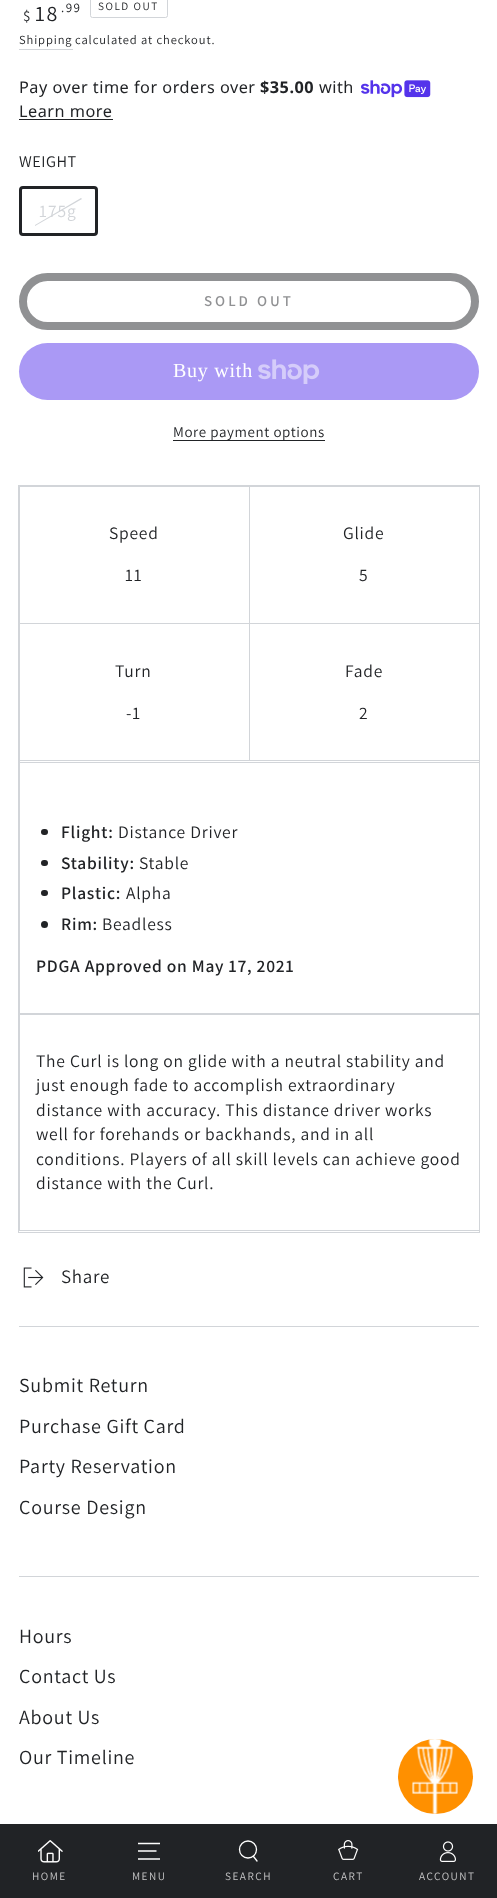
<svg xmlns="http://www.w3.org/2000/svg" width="497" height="1898">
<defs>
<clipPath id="clip1"><rect x="138" y="1840" width="22" height="23"/></clipPath>
</defs>
<rect width="100%" height="100%" fill="#fff"/>
<text x="23" y="21" style="font-family:Assistant;font-size:15px;letter-spacing:1.5px;fill:#212326">$</text>
<text x="35" y="21" style="font-family:Assistant;font-size:22px;letter-spacing:1.5px;fill:#212326">18</text>
<text x="61" y="12" style="font-family:Assistant;font-size:13px;letter-spacing:1.5px;fill:#212326">.99</text>
<rect x="90.5" y="-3.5" width="77" height="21" rx="2" fill="none" stroke="#d2d5d9"/>
<text x="98" y="10" style="font-family:Assistant;font-size:11.25px;letter-spacing:1.5px;fill:#212326">SOLD OUT</text>
<text x="19" y="44" style="font-family:Assistant;font-size:12.5px;letter-spacing:0.9px;fill:#212326">Shipping</text>
<rect x="19" y="49" width="54" height="1" fill="#d2d5d9"/>
<text x="75" y="44" style="font-family:Assistant;font-size:12.5px;letter-spacing:0.9px;fill:#212326">calculated at checkout.</text>
<text x="19" y="93" style="font-family:Noto Sans;font-size:16.25px;letter-spacing:0.5px;fill:#212326">Pay over time for orders over</text>
<text x="260" y="93" style="font-family:Noto Sans;font-size:16.25px;font-weight:bold;letter-spacing:0.5px;fill:#212326">$35.00</text>
<text x="319" y="93" style="font-family:Noto Sans;font-size:16.25px;letter-spacing:0.5px;fill:#212326">with</text>
<image x="361" y="80" width="70" height="18" href="media/1.png"/>
<text x="19" y="117" style="font-family:Noto Sans;font-size:16.25px;letter-spacing:0.5px;fill:#212326">Learn more</text>
<rect x="19" y="119" width="94" height="1" fill="#212326"/>
<text x="19" y="167" style="font-family:Assistant;font-size:16.25px;letter-spacing:0.5px;fill:#212326">WEIGHT</text>
<rect x="20.5" y="187.5" width="76" height="47" rx="2.5" fill="none" stroke="#212326" stroke-width="3"/>
<path d="M35 225l46-27l1 1l-47 27z" fill="#d2d5d9"/>
<text x="39" y="217" style="font-family:Assistant;font-size:17.5px;letter-spacing:1px;fill:#d2d5d9">175g</text>
<rect x="23" y="277" width="452" height="49" rx="24.5" fill="none" stroke="#909193" stroke-width="8"/>
<text x="204" y="306" style="font-family:Assistant;font-size:15px;font-weight:600;letter-spacing:3px;fill:#909193">SOLD OUT</text>
<rect x="19" y="343" width="460" height="57" rx="28.5" fill="#aa99f5"/>
<text x="173" y="377" style="font-family:Liberation Serif;font-size:20px;letter-spacing:0.75px;fill:#fff">Buy with</text>
<image x="258" y="359" width="62" height="25" href="media/2.png"/>
<rect x="173" y="440" width="152" height="1" fill="#212326"/>
<text x="173" y="437" style="font-family:Assistant;font-size:15px;letter-spacing:0.6px;fill:#212326">More payment options</text>
<rect x="18.5" y="485.5" width="461" height="277" fill="none" stroke="#d2d5d9"/>
<rect x="249" y="486" width="231" height="1" fill="#d2d5d9"/>
<rect x="249" y="623" width="231" height="1" fill="#d2d5d9"/>
<rect x="249" y="623" width="1" height="138" fill="#d2d5d9"/>
<rect x="19" y="623" width="231" height="1" fill="#d2d5d9"/>
<rect x="249" y="486" width="1" height="138" fill="#d2d5d9"/>
<rect x="19" y="486" width="231" height="1" fill="#d2d5d9"/>
<rect x="19" y="623" width="1" height="138" fill="#d2d5d9"/>
<rect x="19" y="486" width="1" height="138" fill="#d2d5d9"/>
<text x="109" y="539" style="font-family:Assistant;font-size:17.5px;letter-spacing:0.75px;fill:#212326">Speed</text>
<text x="125" y="581" style="font-family:Assistant;font-size:17.5px;letter-spacing:0.75px;fill:#212326">11</text>
<text x="343" y="539" style="font-family:Assistant;font-size:17.5px;letter-spacing:0.75px;fill:#212326">Glide</text>
<text x="359" y="581" style="font-family:Assistant;font-size:17.5px;letter-spacing:0.75px;fill:#212326">5</text>
<text x="115" y="677" style="font-family:Assistant;font-size:17.5px;letter-spacing:0.75px;fill:#212326">Turn</text>
<text x="126" y="719" style="font-family:Assistant;font-size:17.5px;letter-spacing:0.75px;fill:#212326">-1</text>
<text x="345" y="677" style="font-family:Assistant;font-size:17.5px;letter-spacing:0.75px;fill:#212326">Fade</text>
<text x="359" y="719" style="font-family:Assistant;font-size:17.5px;letter-spacing:0.75px;fill:#212326">2</text>
<rect x="18.5" y="760.5" width="461" height="254" fill="none" stroke="#d2d5d9"/>
<rect x="19" y="760" width="1" height="255" fill="#d2d5d9"/>
<rect x="41" y="829" width="7" height="6" rx="3" fill="#212326"/>
<text x="61" y="838" style="font-family:Assistant;font-size:17.5px;font-weight:600;letter-spacing:0.75px;fill:#212326">Flight:</text>
<text x="118" y="838" style="font-family:Assistant;font-size:17.5px;letter-spacing:0.75px;fill:#212326">Distance Driver</text>
<rect x="41" y="860" width="7" height="6" rx="3" fill="#212326"/>
<text x="61" y="869" style="font-family:Assistant;font-size:17.5px;font-weight:600;letter-spacing:0.75px;fill:#212326">Stability:</text>
<text x="139" y="869" style="font-family:Assistant;font-size:17.5px;letter-spacing:0.75px;fill:#212326">Stable</text>
<rect x="41" y="890" width="7" height="6" rx="3" fill="#212326"/>
<text x="61" y="899" style="font-family:Assistant;font-size:17.5px;font-weight:600;letter-spacing:0.75px;fill:#212326">Plastic:</text>
<text x="126" y="899" style="font-family:Assistant;font-size:17.5px;letter-spacing:0.75px;fill:#212326">Alpha</text>
<circle cx="44.5" cy="924.5" r="3.5" fill="#212326"/>
<text x="61" y="930" style="font-family:Assistant;font-size:17.5px;font-weight:600;letter-spacing:0.75px;fill:#212326">Rim:</text>
<text x="102" y="930" style="font-family:Assistant;font-size:17.5px;letter-spacing:0.75px;fill:#212326">Beadless</text>
<text x="36" y="972" style="font-family:Assistant;font-size:17.5px;font-weight:600;letter-spacing:0.75px;fill:#212326">PDGA Approved on May 17, 2021</text>
<rect x="18.5" y="1013.5" width="461" height="219" fill="none" stroke="#d2d5d9"/>
<rect x="19" y="1230" width="461" height="1" fill="#d2d5d9"/>
<rect x="19" y="1014" width="1" height="217" fill="#d2d5d9"/>
<text x="36" y="1067" style="font-family:Assistant;font-size:17.5px;letter-spacing:0.75px;fill:#212326">The Curl is long on glide with a neutral stability and</text>
<text x="36" y="1091" style="font-family:Assistant;font-size:17.5px;letter-spacing:0.75px;fill:#212326">just enough fade to accomplish extraordinary</text>
<text x="36" y="1116" style="font-family:Assistant;font-size:17.5px;letter-spacing:0.75px;fill:#212326">distance with accuracy. This distance driver works</text>
<text x="36" y="1140" style="font-family:Assistant;font-size:17.5px;letter-spacing:0.75px;fill:#212326">well for forehands or backhands, and in all</text>
<text x="36" y="1165" style="font-family:Assistant;font-size:17.5px;letter-spacing:0.75px;fill:#212326">conditions. Players of all skill levels can achieve good</text>
<text x="36" y="1189" style="font-family:Assistant;font-size:17.5px;letter-spacing:0.75px;fill:#212326">distance with the Curl.</text>
<image x="23" y="1267" width="21" height="21" href="media/3.png"/>
<text x="61" y="1283" style="font-family:Assistant;font-size:19px;letter-spacing:0.75px;fill:#212326">Share</text>
<rect x="19" y="1326" width="460" height="1" fill="#d2d5d9"/>
<rect x="19" y="1576" width="460" height="1" fill="#d2d5d9"/>
<text x="19" y="1392" style="font-family:Assistant;font-size:20px;letter-spacing:0.75px;fill:#212326">Submit Return</text>
<text x="19" y="1433" style="font-family:Assistant;font-size:20px;letter-spacing:0.75px;fill:#212326">Purchase Gift Card</text>
<text x="19" y="1473" style="font-family:Assistant;font-size:20px;letter-spacing:0.75px;fill:#212326">Party Reservation</text>
<text x="19" y="1514" style="font-family:Assistant;font-size:20px;letter-spacing:0.75px;fill:#212326">Course Design</text>
<text x="19" y="1643" style="font-family:Assistant;font-size:20px;letter-spacing:0.75px;fill:#212326">Hours</text>
<text x="19" y="1683" style="font-family:Assistant;font-size:20px;letter-spacing:0.75px;fill:#212326">Contact Us</text>
<text x="19" y="1724" style="font-family:Assistant;font-size:20px;letter-spacing:0.75px;fill:#212326">About Us</text>
<text x="19" y="1764" style="font-family:Assistant;font-size:20px;letter-spacing:0.75px;fill:#212326">Our Timeline</text>
<circle cx="435.5" cy="1776.5" r="37.5" fill="#ff9000"/>
<image x="412" y="1739" width="46" height="75" href="media/4.png"/>
<rect y="1824" width="497" height="74" fill="#212326"/>
<image x="38" y="1840" width="25" height="23" href="media/5.png"/>
<text x="32" y="1880" style="font-family:Assistant;font-size:11.25px;letter-spacing:1.5px;fill:#c8c8c9">HOME</text>
<g clip-path="url(#clip1)">
<path d="M137.5 1859h22.5m-22.5-8h19m-19-7.5h22.5" fill="none" stroke="#fff" stroke-width="1.4"/>
</g>
<text x="132" y="1880" style="font-family:Assistant;font-size:11.25px;letter-spacing:1.5px;fill:#c8c8c9">MENU</text>
<circle cx="248" cy="1849.5" r="8.5" fill="none" stroke="#fff" stroke-width="1.3"/>
<path d="M253.5 1856.5l3.5 4.5" fill="none" stroke="#fff" stroke-width="1.3" stroke-linecap="round"/>
<text x="225" y="1880" style="font-family:Assistant;font-size:11.25px;letter-spacing:1.5px;fill:#c8c8c9">SEARCH</text>
<image x="338" y="1840" width="21" height="20" href="media/6.png"/>
<text x="333" y="1880" style="font-family:Assistant;font-size:11.25px;letter-spacing:1.5px;fill:#c8c8c9">CART</text>
<image x="439" y="1841" width="17" height="21" href="media/7.png"/>
<text x="419" y="1880" style="font-family:Assistant;font-size:11.25px;letter-spacing:1.5px;fill:#c8c8c9">ACCOUNT</text>
</svg>
